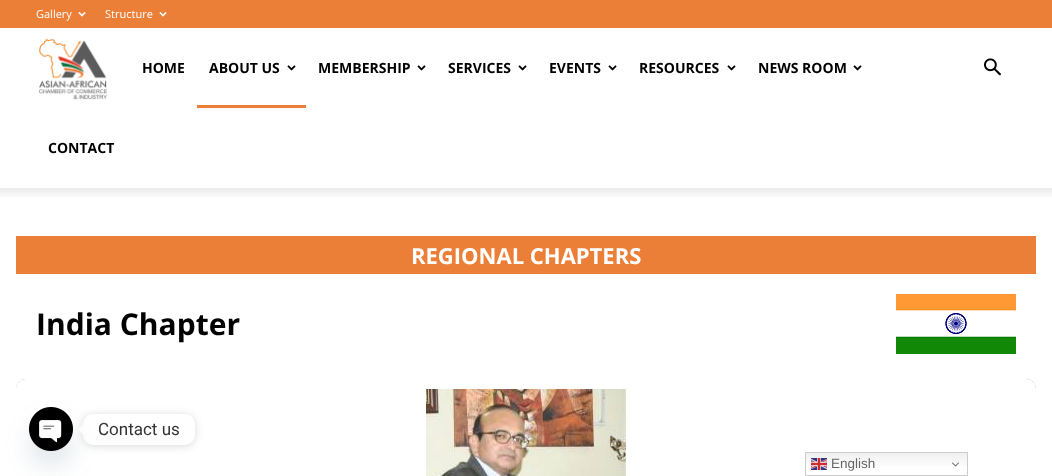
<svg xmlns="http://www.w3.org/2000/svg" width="1052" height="476">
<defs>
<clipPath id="clip1"><path d="M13 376h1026v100h-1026zm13 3h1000c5.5 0 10 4.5 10 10v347c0 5.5-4.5 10-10 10h-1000c-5.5 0-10-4.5-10-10v-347c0-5.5 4.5-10 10-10z" clip-rule="evenodd"/></clipPath>
<linearGradient id="g1" gradientUnits="userSpaceOnUse" x1="887" y1="452" x2="887" y2="476"><stop offset="0" stop-color="#efefef"/><stop offset="0.7" stop-color="#fff"/></linearGradient>
</defs>
<rect width="100%" height="100%" fill="#fff"/>
<rect width="1052" height="28" fill="#ec7f37"/>
<text x="36" y="18" style="font-family:Open Sans;font-size:11px;fill:#fff">Gallery</text>
<image x="78" y="12" width="8" height="5" href="media/1.png"/>
<text x="105" y="18" style="font-family:Open Sans;font-size:11px;fill:#fff">Structure</text>
<image x="159" y="12" width="8" height="5" href="media/1.png"/>
<image x="39" y="38" width="68" height="62" href="media/2.png"/>
<text x="142" y="73" style="font-family:Open Sans;font-size:14px;font-weight:bold;fill:#000">HOME</text>
<text x="209" y="73" style="font-family:Open Sans;font-size:14px;font-weight:bold;fill:#000">ABOUT US</text>
<image x="287" y="65" width="9" height="6" href="media/3.png"/>
<rect x="197" y="105" width="109" height="3" fill="#ec7f37"/>
<text x="318" y="73" style="font-family:Open Sans;font-size:14px;font-weight:bold;fill:#000">MEMBERSHIP</text>
<image x="417" y="65" width="9" height="6" href="media/3.png"/>
<text x="448" y="73" style="font-family:Open Sans;font-size:14px;font-weight:bold;fill:#000">SERVICES</text>
<image x="518" y="65" width="9" height="6" href="media/3.png"/>
<text x="549" y="73" style="font-family:Open Sans;font-size:14px;font-weight:bold;fill:#000">EVENTS</text>
<image x="608" y="65" width="9" height="6" href="media/3.png"/>
<text x="639" y="73" style="font-family:Open Sans;font-size:14px;font-weight:bold;fill:#000">RESOURCES</text>
<image x="727" y="65" width="9" height="6" href="media/3.png"/>
<text x="758" y="73" style="font-family:Open Sans;font-size:14px;font-weight:bold;fill:#000">NEWS ROOM</text>
<image x="853" y="65" width="9" height="6" href="media/3.png"/>
<text x="48" y="153" style="font-family:Open Sans;font-size:14px;font-weight:bold;fill:#000">CONTACT</text>
<image x="984" y="58" width="17" height="18" href="media/4.png"/>
<image x="0" y="188" width="1052" height="9" href="media/5.png"/>
<rect x="16" y="236" width="1020" height="38" fill="#ec7f37"/>
<text x="411" y="264" style="font-family:Open Sans;font-size:22px;font-weight:bold;fill:#fff">REGIONAL CHAPTERS</text>
<text x="36" y="335" style="font-family:Open Sans;font-size:30px;font-weight:bold;fill:#000">India Chapter</text>
<image x="896" y="294" width="120" height="60" href="media/6.png"/>
<g clip-path="url(#clip1)">
<rect x="16" y="379" width="1020" height="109" rx="10" fill="#888" filter="blur(0.5px)"/>
</g>
<image x="426" y="389" width="200" height="87" href="media/7.png"/>
<rect x="83" y="415" width="112" height="31" rx="10" fill="#00000026" filter="blur(4px)"/>
<rect x="83" y="414" width="112" height="31" rx="10" fill="#fff"/>
<path d="M83 424.5v10l-5-5z" fill="#fff"/>
<rect x="29" y="423" width="44" height="44" rx="22" fill="#49687e29" filter="blur(12px)"/>
<image x="29" y="407" width="44" height="44" href="media/8.png"/>
<text x="98" y="435" style="font-family:Roboto;font-size:17px;fill:#333">Contact us</text>
<rect x="806" y="453" width="161" height="13" fill="url(#g1)"/>
<rect x="805.5" y="452.5" width="162" height="23" fill="none" stroke="#ccc"/>
<image x="811" y="458" width="16" height="12" href="media/9.png"/>
<text x="831" y="468" style="font-family:Liberation Sans;font-size:13.5px;fill:#666">English</text>
<image x="952" y="462" width="7" height="5" href="media/10.png"/>
</svg>
